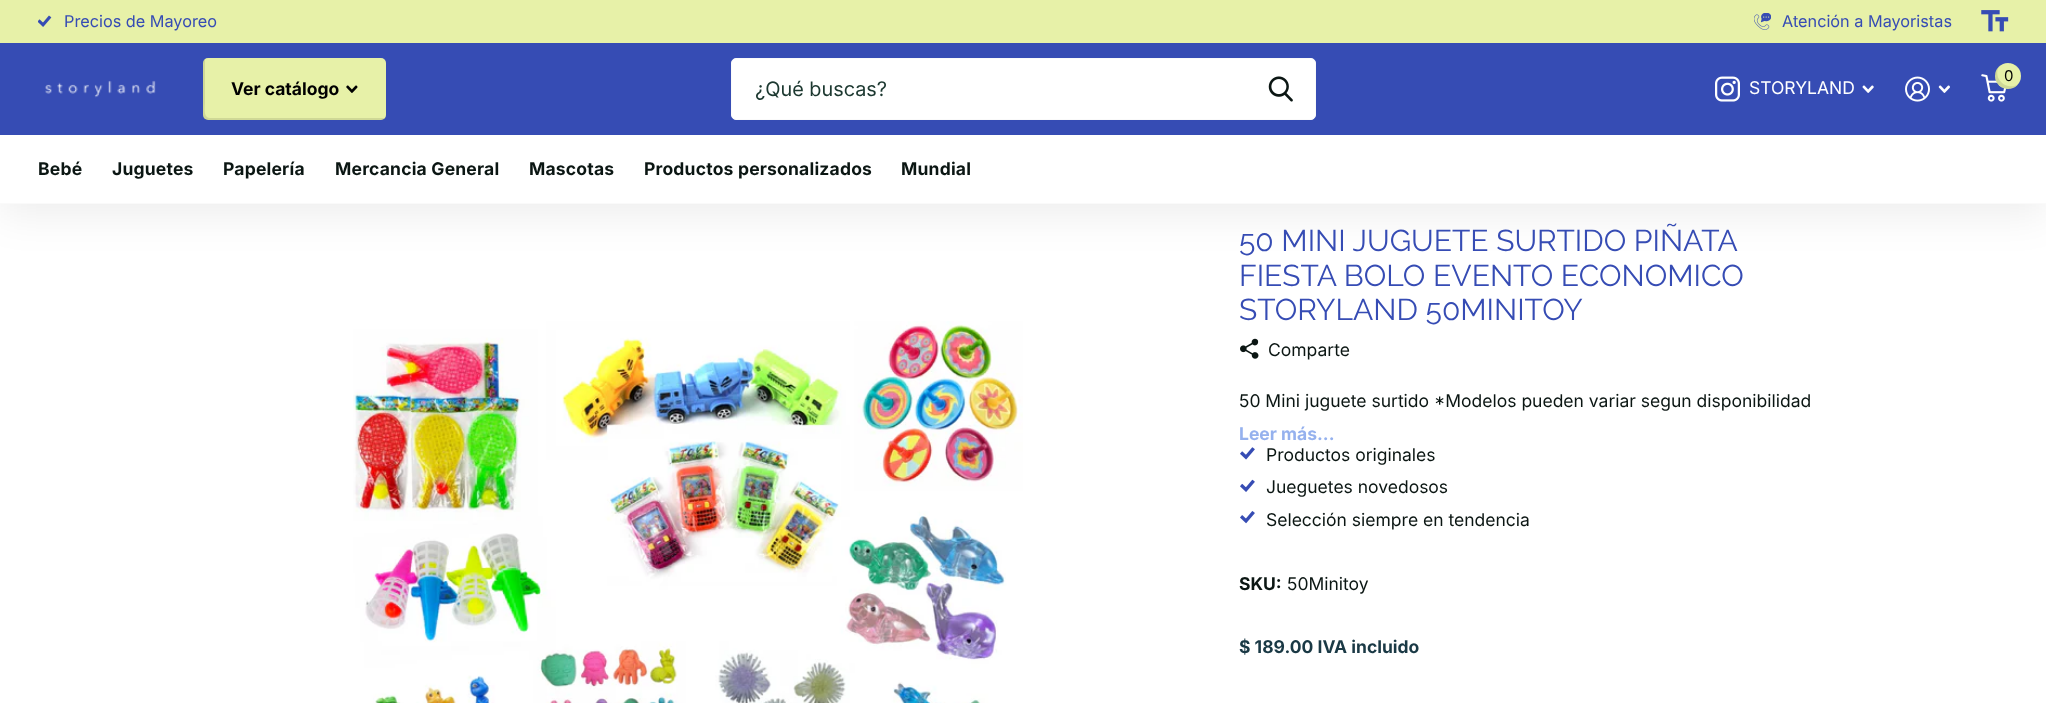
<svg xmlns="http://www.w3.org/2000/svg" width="2046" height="703">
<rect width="100%" height="100%" fill="#fff"/>
<rect y="11" width="2046" height="204" fill="#00000012" filter="blur(20px)"/>
<rect y="43" width="2046" height="92" fill="#364cb4"/>
<rect y="203" width="2046" height="1" fill="#fafafa"/>
<rect width="2046" height="43" fill="#e7f1a8"/>
<image x="38" y="15" width="14" height="12" href="media/1.png"/>
<text x="64" y="27" style="font-family:Inter;font-size:16.25px;fill:#364cb4">Precios de Mayoreo</text>
<image x="1754" y="13" width="17" height="17" href="media/2.png"/>
<text x="1782" y="27" style="font-family:Inter;font-size:16.25px;fill:#364cb4">Atención a Mayoristas</text>
<image x="1981" y="10" width="28" height="22" href="media/3.png"/>
<image x="45" y="80" width="111" height="18" href="media/4.png"/>
<rect x="203" y="58" width="183" height="62" rx="5" fill="#e7f1a8"/>
<path d="M205 59c-1 1-2 2-2 4v52c0 3 2 5 5 5h173c2 0 3-1 4-2h-175c-7 0-5-11-5-15z" fill="#0000001a"/>
<text x="231" y="95" style="font-family:Inter;font-size:17.5px;font-weight:bold;fill:#000">Ver catálogo</text>
<image x="346" y="85" width="12" height="8" href="media/5.png"/>
<rect x="731.5" y="58.5" width="584" height="61" rx="4.5" fill="#fff" stroke="#fafafa"/>
<text x="755" y="96" style="font-family:'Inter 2';font-size:20px;fill:#1c3830">¿Qué buscas?</text>
<image x="1268" y="76" width="25" height="26" href="media/6.png"/>
<image x="1715" y="76" width="25" height="26" href="media/7.png"/>
<text x="1749" y="94" style="font-family:Inter;font-size:17.5px;fill:#fff">STORYLAND</text>
<image x="1862" y="85" width="12" height="8" href="media/8.png"/>
<image x="1905" y="76" width="25" height="26" href="media/9.png"/>
<image x="1938" y="85" width="12" height="8" href="media/10.png"/>
<image x="1981" y="74" width="26" height="28" href="media/11.png"/>
<circle cx="2008" cy="76" r="13" fill="#e7f1a8"/>
<path d="M2018.5 84c-11 7.5-26.5-5-19.5-17.5c-5 5-5.5 13.5 0 18.5c5.5 5.5 14.5 5 19.5-1z" fill="#0000001a"/>
<text x="2004" y="81" style="font-family:Inter;font-size:15px;fill:#000">0</text>
<rect y="135" width="2046" height="68" fill="#fff"/>
<text x="38" y="175" style="font-family:Inter;font-size:17.5px;font-weight:bold;letter-spacing:0.2px;fill:#0b1613">Bebé</text>
<text x="112" y="175" style="font-family:Inter;font-size:17.5px;font-weight:bold;letter-spacing:0.2px;fill:#0b1613">Juguetes</text>
<text x="223" y="175" style="font-family:Inter;font-size:17.5px;font-weight:bold;letter-spacing:0.2px;fill:#0b1613">Papelería</text>
<text x="335" y="175" style="font-family:Inter;font-size:17.5px;font-weight:bold;letter-spacing:0.2px;fill:#0b1613">Mercancia General</text>
<text x="529" y="175" style="font-family:Inter;font-size:17.5px;font-weight:bold;letter-spacing:0.2px;fill:#0b1613">Mascotas</text>
<text x="644" y="175" style="font-family:Inter;font-size:17.5px;font-weight:bold;letter-spacing:0.2px;fill:#0b1613">Productos personalizados</text>
<text x="901" y="175" style="font-family:Inter;font-size:17.5px;font-weight:bold;letter-spacing:0.2px;fill:#0b1613">Mundial</text>
<image x="353" y="321" width="670" height="382" href="media/12.png"/>
<text x="1239" y="251" style="font-family:Raleway;font-size:30px;fill:#364cb4">50 MINI JUGUETE SURTIDO PIÑATA</text>
<text x="1239" y="286" style="font-family:Raleway;font-size:30px;fill:#364cb4">FIESTA BOLO EVENTO ECONOMICO</text>
<text x="1239" y="320" style="font-family:Raleway;font-size:30px;fill:#364cb4">STORYLAND 50MINITOY</text>
<image x="1240" y="338" width="19" height="21" href="media/13.png"/>
<text x="1268" y="356" style="font-family:Inter;font-size:17.5px;fill:#0b1613">Comparte</text>
<text x="1239" y="407" style="font-family:Inter;font-size:17.5px;fill:#0b1613">50 Mini juguete surtido *Modelos pueden variar segun disponibilidad</text>
<text x="1239" y="440" style="font-family:Inter;font-size:17.5px;font-weight:bold;fill:#95b1ee">Leer más...</text>
<image x="1240" y="447" width="15" height="13" href="media/14.png"/>
<text x="1266" y="461" style="font-family:Inter;font-size:17.5px;fill:#0b1613">Productos originales</text>
<image x="1240" y="479" width="15" height="13" href="media/15.png"/>
<text x="1266" y="493" style="font-family:Inter;font-size:17.5px;fill:#0b1613">Jueguetes novedosos</text>
<image x="1240" y="511" width="15" height="13" href="media/16.png"/>
<text x="1266" y="526" style="font-family:Inter;font-size:17.5px;fill:#0b1613">Selección siempre en tendencia</text>
<text x="1239" y="590" style="font-family:Inter;font-size:17.5px;font-weight:bold;fill:#0b1613">SKU:</text>
<text x="1287" y="590" style="font-family:Inter;font-size:17.5px;fill:#0b1613">50Minitoy</text>
<text x="1239" y="653" style="font-family:Inter;font-size:17.5px;font-weight:bold;fill:#1a3945">$ 189.00 IVA incluido</text>
</svg>
